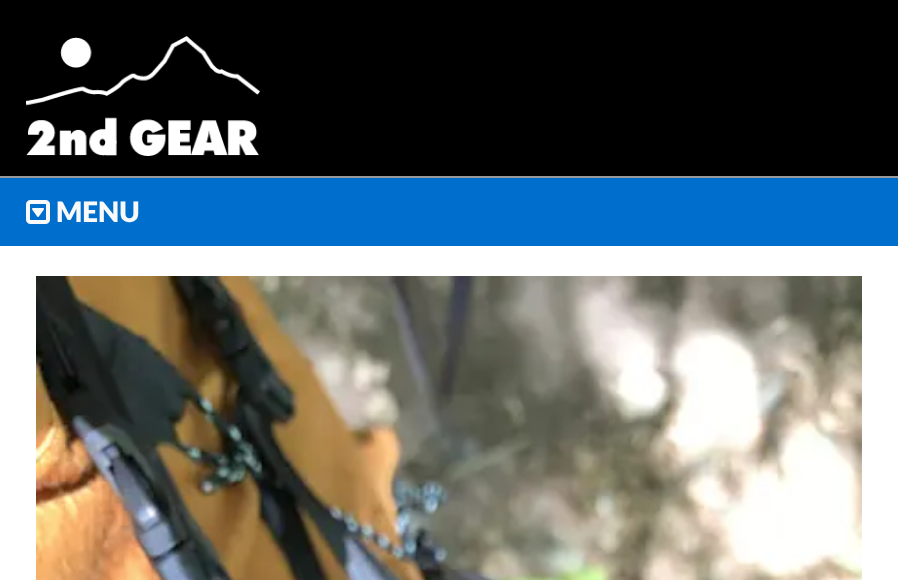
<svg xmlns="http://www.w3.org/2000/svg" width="898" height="580">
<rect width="100%" height="100%" fill="#fff"/>
<rect width="898" height="176" fill="#000"/>
<image x="26" y="36" width="234" height="120" href="media/1.png"/>
<rect y="176" width="898" height="2" fill="#999"/>
<rect y="178" width="898" height="68" fill="#006ecc"/>
<image x="26" y="200" width="24" height="24" href="media/2.png"/>
<text x="56" y="222" style="font-family:Lato;font-size:28px;font-weight:900;fill:#f9f9f9">MENU</text>
<image x="36" y="276" width="826" height="304" href="media/3.png"/>
</svg>
